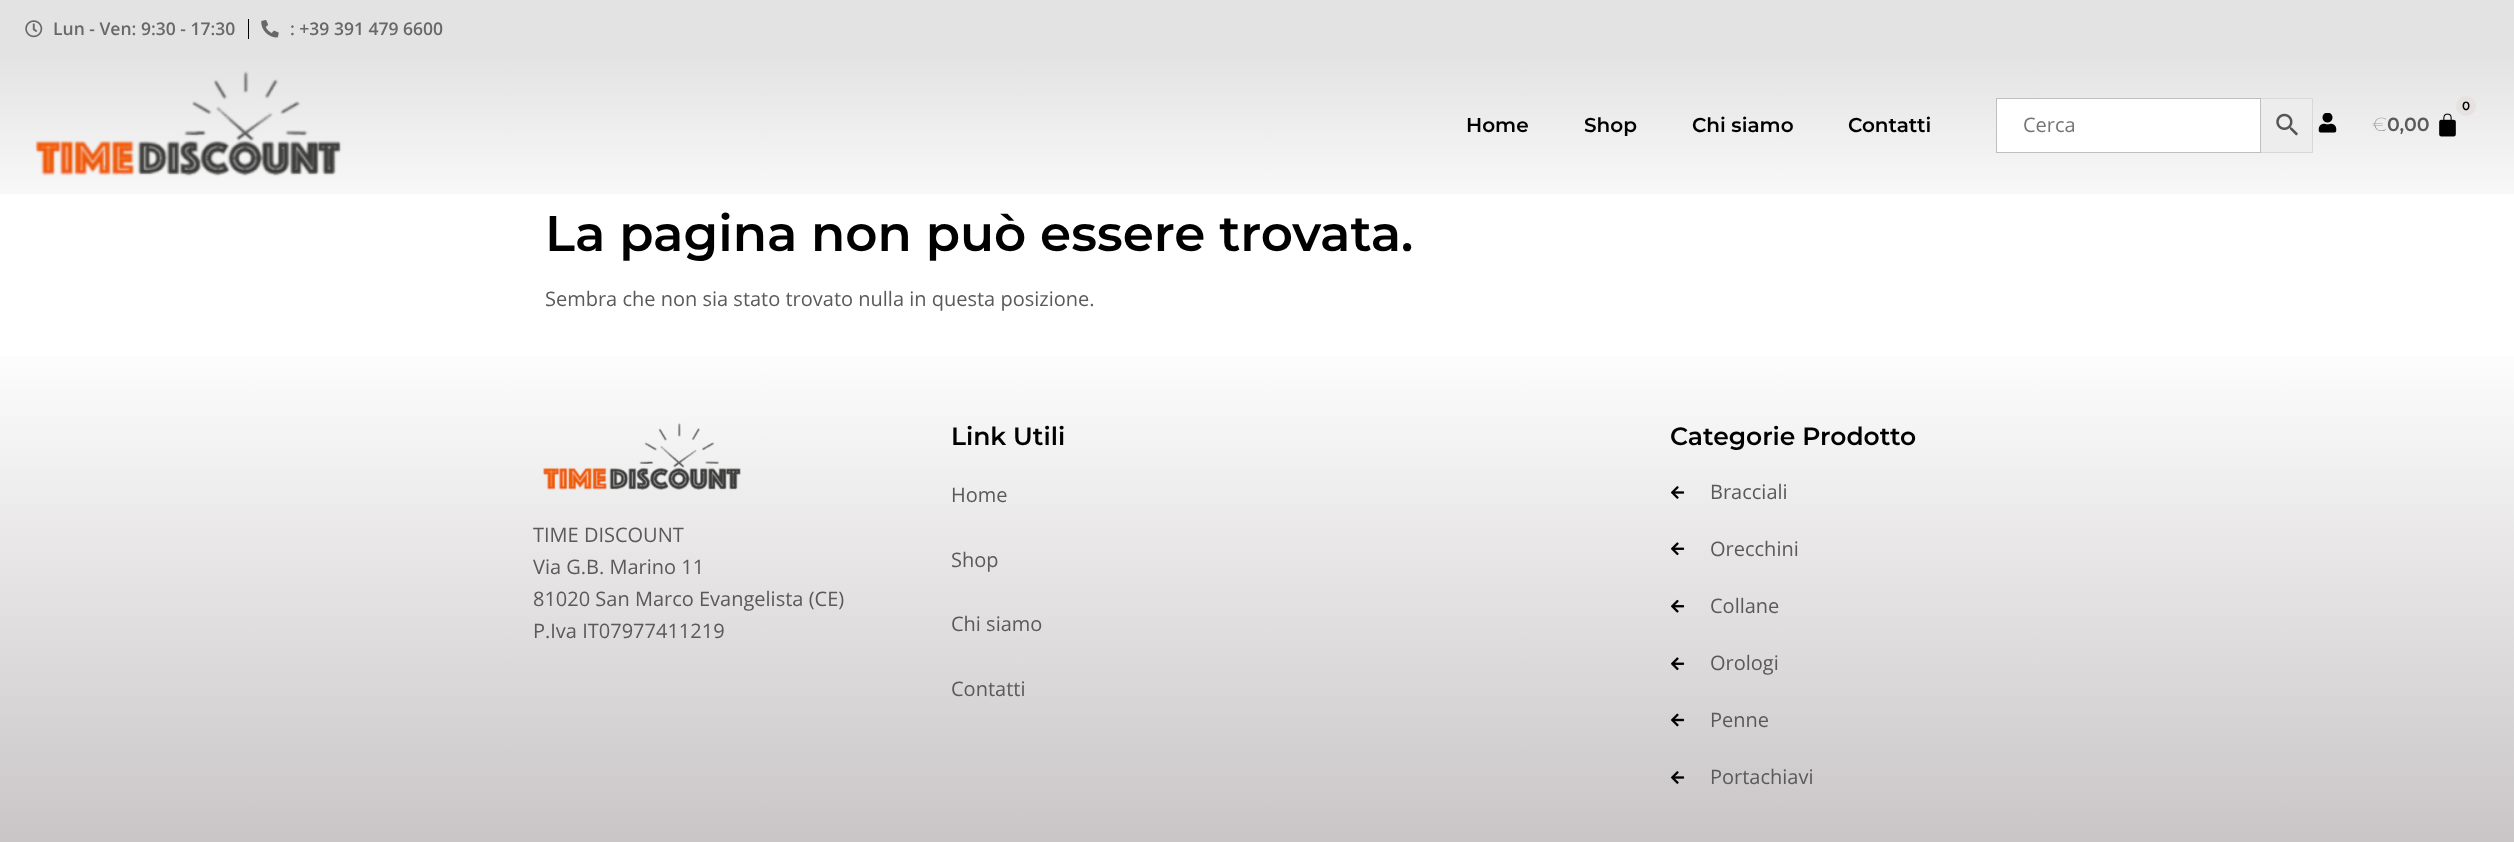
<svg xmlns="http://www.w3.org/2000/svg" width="2514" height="842">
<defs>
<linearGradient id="g1" gradientUnits="userSpaceOnUse" x1="1258" y1="56" x2="1258" y2="194"><stop offset="0" stop-color="#e3e3e3"/><stop offset="1" stop-color="#f8f8f8"/></linearGradient>
<linearGradient id="g2" gradientUnits="userSpaceOnUse" x1="1258" y1="334" x2="1258" y2="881"><stop offset="0" stop-color="#fff"/><stop offset="1" stop-color="#c5c1c2"/></linearGradient>
</defs>
<rect width="100%" height="100%" fill="#fff"/>
<rect width="2514" height="56" fill="#e3e3e3"/>
<image x="25" y="20" width="18" height="18" href="media/1.png"/>
<text x="53" y="35" style="font-family:Open Sans;font-size:17.5px;font-weight:600;fill:#686868">Lun - Ven: 9:30 - 17:30</text>
<rect x="248" y="19" width="1" height="20" fill="#000"/>
<image x="261" y="20" width="18" height="18" href="media/2.png"/>
<text x="290" y="35" style="font-family:Open Sans;font-size:17.5px;font-weight:600;fill:#686868">: +39 391 479 6600</text>
<rect y="56" width="2514" height="138" fill="url(#g1)"/>
<image x="35" y="71" width="307" height="106" href="media/3.png"/>
<text x="1466" y="132" style="font-family:Montserrat;font-size:20px;font-weight:600;fill:#000">Home</text>
<text x="1584" y="132" style="font-family:Montserrat;font-size:20px;font-weight:600;fill:#000">Shop</text>
<text x="1692" y="132" style="font-family:Montserrat;font-size:20px;font-weight:600;fill:#000">Chi siamo</text>
<text x="1848" y="132" style="font-family:Montserrat;font-size:20px;font-weight:600;fill:#000">Contatti</text>
<rect x="2260.5" y="98.5" width="52" height="54" fill="#ededed" stroke="#d8d8d8"/>
<rect x="1996.5" y="98.5" width="264" height="54" fill="#fff" stroke="#bebebe"/>
<text x="2023" y="132" style="font-family:Open Sans;font-size:20px;fill:#757575">Cerca</text>
<image x="2276" y="113" width="22" height="23" href="media/4.png"/>
<image x="2318" y="113" width="19" height="20" href="media/5.png"/>
<circle cx="2466" cy="106" r="10" fill="#e7e1e0"/>
<text x="2462" y="110" style="font-family:Montserrat;font-size:12px;font-weight:600;fill:#000">0</text>
<image x="2439" y="113" width="17" height="24" href="media/6.png"/>
<text x="2372" y="131" style="font-family:Montserrat;font-size:19px;font-weight:100;fill:#5a5a5a">€</text>
<text x="2387" y="131" style="font-family:Montserrat;font-size:19px;font-weight:600;fill:#5a5a5a">0,00</text>
<text x="545" y="251" style="font-family:Montserrat;font-size:50px;font-weight:600;fill:#000">La pagina non può essere trovata.</text>
<text x="545" y="306" style="font-family:Open Sans;font-size:20px;fill:#5a5a5a">Sembra che non sia stato trovato nulla in questa posizione.</text>
<rect y="356" width="2514" height="486" fill="url(#g2)"/>
<image x="542" y="423" width="199" height="67" href="media/7.png"/>
<text x="533" y="542" style="font-family:Open Sans;font-size:20px;fill:#5a5a5a">TIME DISCOUNT</text>
<text x="533" y="574" style="font-family:Open Sans;font-size:20px;fill:#5a5a5a">Via G.B. Marino 11</text>
<text x="533" y="606" style="font-family:Open Sans;font-size:20px;fill:#5a5a5a">81020 San Marco Evangelista (CE)</text>
<text x="533" y="638" style="font-family:Open Sans;font-size:20px;fill:#5a5a5a">P.Iva IT07977411219</text>
<text x="951" y="445" style="font-family:Montserrat;font-size:25px;font-weight:600;fill:#000">Link Utili</text>
<text x="951" y="502" style="font-family:Open Sans;font-size:20px;fill:#5a5a5a">Home</text>
<text x="951" y="567" style="font-family:Open Sans;font-size:20px;fill:#5a5a5a">Shop</text>
<text x="951" y="631" style="font-family:Open Sans;font-size:20px;fill:#5a5a5a">Chi siamo</text>
<text x="951" y="696" style="font-family:Open Sans;font-size:20px;fill:#5a5a5a">Contatti</text>
<text x="1670" y="445" style="font-family:Montserrat;font-size:25px;font-weight:600;fill:#000">Categorie Prodotto</text>
<image x="1671" y="486" width="14" height="13" href="media/8.png"/>
<text x="1710" y="499" style="font-family:Open Sans;font-size:20px;fill:#5a5a5a">Bracciali</text>
<image x="1671" y="542" width="14" height="14" href="media/9.png"/>
<text x="1710" y="556" style="font-family:Open Sans;font-size:20px;fill:#5a5a5a">Orecchini</text>
<image x="1671" y="599" width="14" height="14" href="media/10.png"/>
<text x="1710" y="613" style="font-family:Open Sans;font-size:20px;fill:#5a5a5a">Collane</text>
<image x="1671" y="657" width="14" height="14" href="media/11.png"/>
<text x="1710" y="670" style="font-family:Open Sans;font-size:20px;fill:#5a5a5a">Orologi</text>
<image x="1671" y="713" width="14" height="14" href="media/12.png"/>
<text x="1710" y="727" style="font-family:Open Sans;font-size:20px;fill:#5a5a5a">Penne</text>
<image x="1671" y="771" width="14" height="13" href="media/13.png"/>
<text x="1710" y="784" style="font-family:Open Sans;font-size:20px;fill:#5a5a5a">Portachiavi</text>
</svg>
